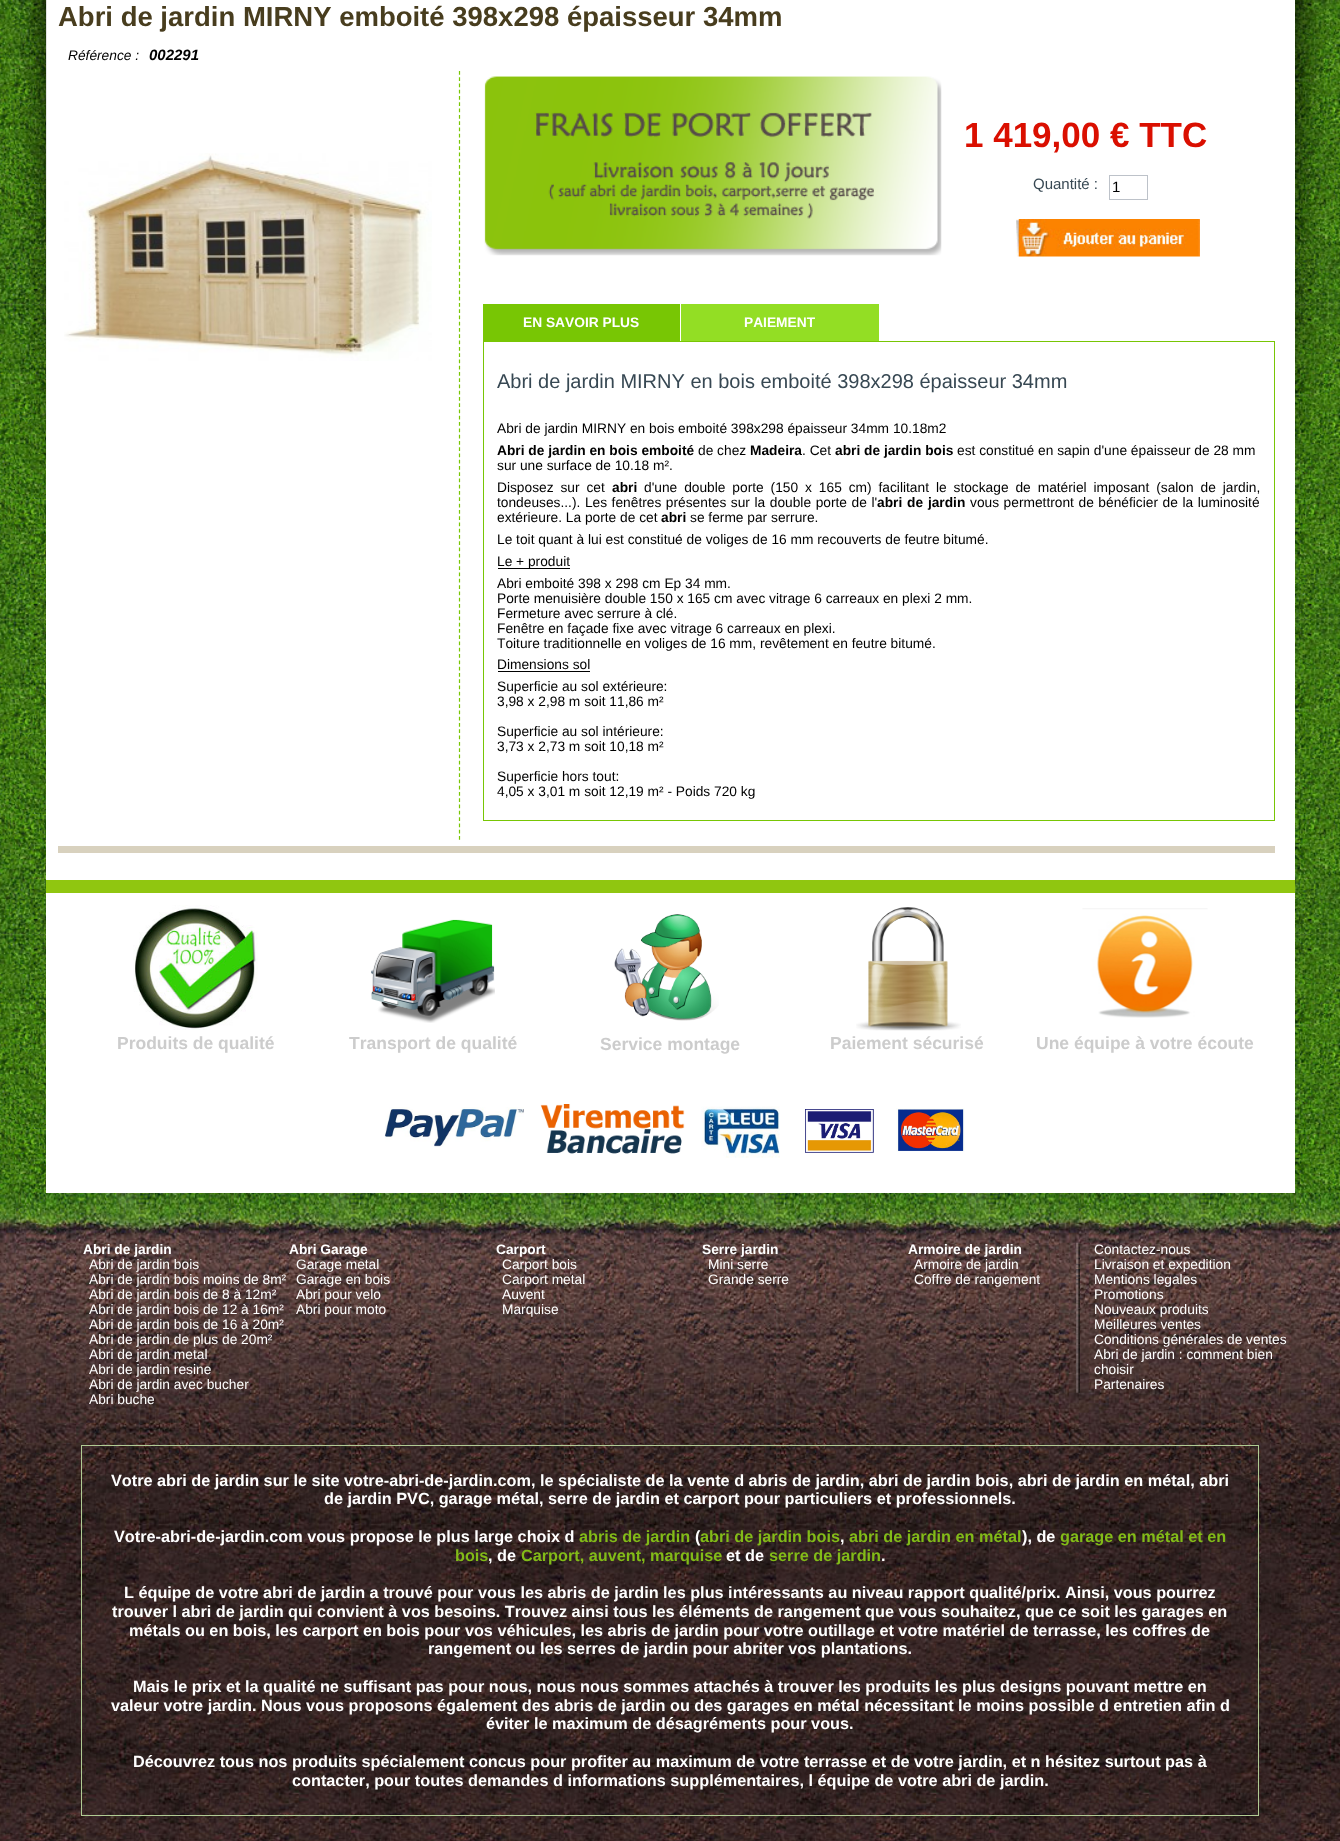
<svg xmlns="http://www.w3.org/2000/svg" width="1340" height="1841">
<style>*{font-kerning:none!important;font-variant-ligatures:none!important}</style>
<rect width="100%" height="100%" fill="#fff"/>
<image x="0" y="0" width="1340" height="1193" href="media/1.png"/>
<image x="0" y="1192" width="1340" height="649" href="media/17.png"/>
<rect x="46" width="1249" height="1193" fill="#fff"/>
<image x="16" y="0" width="31" height="463" href="media/2.png"/>
<image x="1295" y="0" width="31" height="463" href="media/3.png"/>
<text x="58" y="26" style="font-family:Liberation Sans;font-size:27.5px;font-weight:bold;fill:#483d1e">Abri de jardin MIRNY emboité 398x298 épaisseur 34mm</text>
<text x="68" y="60" style="font-family:Liberation Sans;font-size:13.75px;font-style:italic;fill:#000">Référence :</text>
<text x="149" y="60" style="font-family:Liberation Sans;font-size:15px;font-weight:bold;font-style:italic;fill:#000">002291</text>
<image x="64" y="153" width="368" height="208" href="media/4.png"/>
<path d="M459.5 71v769" fill="none" stroke="#78c604" stroke-width="1.2" stroke-dasharray="3.75 2.52"/>
<image x="484" y="76" width="458" height="180" href="media/5.png"/>
<text x="964" y="147" style="font-family:Liberation Sans;font-size:35px;font-weight:bold;fill:#da0f00">1 419,00 € TTC</text>
<text x="1033" y="189" style="font-family:Liberation Sans;font-size:15px;fill:#374853">Quantité :</text>
<rect x="1109.5" y="175.5" width="38" height="24" fill="none" stroke="#bdc2c9"/>
<text x="1112" y="192" style="font-family:Liberation Sans;font-size:15px;fill:#000">1</text>
<image x="1016" y="219" width="184" height="38" href="media/6.png"/>
<rect x="483" y="304" width="197" height="37" fill="#78c604"/>
<text x="523" y="327" style="font-family:Liberation Sans;font-size:13.75px;font-weight:bold;fill:#fff">EN SAVOIR PLUS</text>
<rect x="681" y="304" width="198" height="37" fill="#93de24"/>
<text x="744" y="327" style="font-family:Liberation Sans;font-size:13.75px;font-weight:bold;fill:#fff">PAIEMENT</text>
<rect x="483.5" y="341.5" width="791" height="479" fill="none" stroke="#78c604"/>
<text x="497" y="388" style="font-family:Liberation Sans;font-size:20px;fill:#374853">Abri de jardin MIRNY en bois emboité 398x298 épaisseur 34mm</text>
<text x="497" y="433" style="font-family:Liberation Sans;font-size:13.75px;fill:#000">Abri de jardin MIRNY en bois emboité 398x298 épaisseur 34mm 10.18m2</text>
<text x="497" y="455" style="font-family:Liberation Sans;font-size:13.75px;font-weight:bold;fill:#000">Abri de jardin en bois emboité</text>
<text x="698" y="455" style="font-family:Liberation Sans;font-size:13.75px;fill:#000">de chez</text>
<text x="750" y="455" style="font-family:Liberation Sans;font-size:13.75px;font-weight:bold;fill:#000">Madeira</text>
<text x="802" y="455" style="font-family:Liberation Sans;font-size:13.75px;fill:#000">. Cet</text>
<text x="835" y="455" style="font-family:Liberation Sans;font-size:13.75px;font-weight:bold;fill:#000">abri de jardin bois</text>
<text x="957" y="455" style="font-family:Liberation Sans;font-size:13.75px;fill:#000">est constitué en sapin d'une épaisseur de 28 mm</text>
<text x="497" y="470" style="font-family:Liberation Sans;font-size:13.75px;fill:#000">sur une surface de 10.18 m².</text>
<text x="497" y="492" word-spacing="3.1" style="font-family:Liberation Sans;font-size:13.75px;fill:#000">Disposez sur cet</text>
<text x="612" y="492" style="font-family:Liberation Sans;font-size:13.75px;font-weight:bold;fill:#000">abri</text>
<text x="644" y="492" word-spacing="3.1" style="font-family:Liberation Sans;font-size:13.75px;fill:#000">d'une double porte (150 x 165 cm) facilitant le stockage de matériel imposant (salon de jardin,</text>
<text x="497" y="507" word-spacing="0.75" style="font-family:Liberation Sans;font-size:13.75px;fill:#000">tondeuses...). Les fenêtres présentes sur la double porte de l'</text>
<text x="877" y="507" word-spacing="1" style="font-family:Liberation Sans;font-size:13.75px;font-weight:bold;fill:#000">abri de jardin</text>
<text x="970" y="507" word-spacing="0.75" style="font-family:Liberation Sans;font-size:13.75px;fill:#000">vous permettront de bénéficier de la luminosité</text>
<text x="497" y="522" style="font-family:Liberation Sans;font-size:13.75px;fill:#000">extérieure. La porte de cet</text>
<text x="661" y="522" style="font-family:Liberation Sans;font-size:13.75px;font-weight:bold;fill:#000">abri</text>
<text x="690" y="522" style="font-family:Liberation Sans;font-size:13.75px;fill:#000">se ferme par serrure.</text>
<text x="497" y="544" style="font-family:Liberation Sans;font-size:13.75px;fill:#000">Le toit quant à lui est constitué de voliges de 16 mm recouverts de feutre bitumé.</text>
<rect x="498" y="568" width="72" height="1" fill="#000"/>
<text x="497" y="566" style="font-family:Liberation Sans;font-size:13.75px;fill:#000">Le + produit</text>
<text x="497" y="588" style="font-family:Liberation Sans;font-size:13.75px;fill:#000">Abri emboité 398 x 298 cm Ep 34 mm.</text>
<text x="497" y="603" style="font-family:Liberation Sans;font-size:13.75px;fill:#000">Porte menuisière double 150 x 165 cm avec vitrage 6 carreaux en plexi 2 mm.</text>
<text x="497" y="618" style="font-family:Liberation Sans;font-size:13.75px;fill:#000">Fermeture avec serrure à clé.</text>
<text x="497" y="633" style="font-family:Liberation Sans;font-size:13.75px;fill:#000">Fenêtre en façade fixe avec vitrage 6 carreaux en plexi.</text>
<text x="497" y="648" style="font-family:Liberation Sans;font-size:13.75px;fill:#000">Toiture traditionnelle en voliges de 16 mm, revêtement en feutre bitumé.</text>
<text x="497" y="669" style="font-family:Liberation Sans;font-size:13.75px;fill:#000">Dimensions sol</text>
<rect x="498" y="671" width="92" height="1" fill="#000"/>
<text x="497" y="691" style="font-family:Liberation Sans;font-size:13.75px;fill:#000">Superficie au sol extérieure:</text>
<text x="497" y="706" style="font-family:Liberation Sans;font-size:13.75px;fill:#000">3,98 x 2,98 m soit 11,86 m²</text>
<text x="497" y="736" style="font-family:Liberation Sans;font-size:13.75px;fill:#000">Superficie au sol intérieure:</text>
<text x="497" y="751" style="font-family:Liberation Sans;font-size:13.75px;fill:#000">3,73 x 2,73 m soit 10,18 m²</text>
<text x="497" y="781" style="font-family:Liberation Sans;font-size:13.75px;fill:#000">Superficie hors tout:</text>
<text x="497" y="796" style="font-family:Liberation Sans;font-size:13.75px;fill:#000">4,05 x 3,01 m soit 12,19 m² - Poids 720 kg</text>
<rect x="58" y="846" width="1217" height="7" fill="#d8d1be"/>
<rect x="46" y="880" width="1249" height="13" fill="#90c610"/>
<image x="133" y="905" width="125" height="125" href="media/7.png"/>
<text x="117" y="1049" style="font-family:Liberation Sans;font-size:17.5px;font-weight:bold;fill:#ccc">Produits de qualité</text>
<image x="371" y="919" width="124" height="104" href="media/8.png"/>
<text x="349" y="1049" style="font-family:Liberation Sans;font-size:17.5px;font-weight:bold;fill:#ccc">Transport de qualité</text>
<image x="614" y="914" width="105" height="107" href="media/9.png"/>
<text x="600" y="1050" style="font-family:Liberation Sans;font-size:17.5px;font-weight:bold;fill:#ccc">Service montage</text>
<image x="856" y="907" width="105" height="124" href="media/10.png"/>
<text x="830" y="1049" style="font-family:Liberation Sans;font-size:17.5px;font-weight:bold;fill:#ccc">Paiement sécurisé</text>
<image x="1082" y="908" width="126" height="110" href="media/11.png"/>
<text x="1036" y="1049" style="font-family:Liberation Sans;font-size:17.5px;font-weight:bold;fill:#ccc">Une équipe à votre écoute</text>
<image x="384" y="1107" width="140" height="40" href="media/12.png"/>
<image x="540" y="1104" width="145" height="50" href="media/13.png"/>
<image x="701" y="1106" width="79" height="52" href="media/14.png"/>
<image x="805" y="1109" width="69" height="44" href="media/15.png"/>
<image x="896" y="1108" width="69" height="44" href="media/16.png"/>
<text x="83" y="1254" style="font-family:Liberation Sans;font-size:13.75px;font-weight:bold;fill:#fff">Abri de jardin</text>
<text x="89" y="1269" style="font-family:Liberation Sans;font-size:13.75px;fill:#fff">Abri de jardin bois</text>
<text x="89" y="1284" style="font-family:Liberation Sans;font-size:13.75px;fill:#fff">Abri de jardin bois moins de 8m²</text>
<text x="89" y="1299" style="font-family:Liberation Sans;font-size:13.75px;fill:#fff">Abri de jardin bois de 8 à 12m²</text>
<text x="89" y="1314" style="font-family:Liberation Sans;font-size:13.75px;fill:#fff">Abri de jardin bois de 12 à 16m²</text>
<text x="89" y="1329" style="font-family:Liberation Sans;font-size:13.75px;fill:#fff">Abri de jardin bois de 16 à 20m²</text>
<text x="89" y="1344" style="font-family:Liberation Sans;font-size:13.75px;fill:#fff">Abri de jardin de plus de 20m²</text>
<text x="89" y="1359" style="font-family:Liberation Sans;font-size:13.75px;fill:#fff">Abri de jardin metal</text>
<text x="89" y="1374" style="font-family:Liberation Sans;font-size:13.75px;fill:#fff">Abri de jardin resine</text>
<text x="89" y="1389" style="font-family:Liberation Sans;font-size:13.75px;fill:#fff">Abri de jardin avec bucher</text>
<text x="89" y="1404" style="font-family:Liberation Sans;font-size:13.75px;fill:#fff">Abri buche</text>
<text x="289" y="1254" style="font-family:Liberation Sans;font-size:13.75px;font-weight:bold;fill:#fff">Abri Garage</text>
<text x="296" y="1269" style="font-family:Liberation Sans;font-size:13.75px;fill:#fff">Garage metal</text>
<text x="296" y="1284" style="font-family:Liberation Sans;font-size:13.75px;fill:#fff">Garage en bois</text>
<text x="296" y="1299" style="font-family:Liberation Sans;font-size:13.75px;fill:#fff">Abri pour velo</text>
<text x="296" y="1314" style="font-family:Liberation Sans;font-size:13.75px;fill:#fff">Abri pour moto</text>
<text x="496" y="1254" style="font-family:Liberation Sans;font-size:13.75px;font-weight:bold;fill:#fff">Carport</text>
<text x="502" y="1269" style="font-family:Liberation Sans;font-size:13.75px;fill:#fff">Carport bois</text>
<text x="502" y="1284" style="font-family:Liberation Sans;font-size:13.75px;fill:#fff">Carport metal</text>
<text x="502" y="1299" style="font-family:Liberation Sans;font-size:13.75px;fill:#fff">Auvent</text>
<text x="502" y="1314" style="font-family:Liberation Sans;font-size:13.75px;fill:#fff">Marquise</text>
<text x="702" y="1254" style="font-family:Liberation Sans;font-size:13.75px;font-weight:bold;fill:#fff">Serre jardin</text>
<text x="708" y="1269" style="font-family:Liberation Sans;font-size:13.75px;fill:#fff">Mini serre</text>
<text x="708" y="1284" style="font-family:Liberation Sans;font-size:13.75px;fill:#fff">Grande serre</text>
<text x="908" y="1254" style="font-family:Liberation Sans;font-size:13.75px;font-weight:bold;fill:#fff">Armoire de jardin</text>
<text x="914" y="1269" style="font-family:Liberation Sans;font-size:13.75px;fill:#fff">Armoire de jardin</text>
<text x="914" y="1284" style="font-family:Liberation Sans;font-size:13.75px;fill:#fff">Coffre de rangement</text>
<image x="1076" y="1242" width="4" height="151" href="media/18.png"/>
<text x="1094" y="1254" style="font-family:Liberation Sans;font-size:13.75px;fill:#fff">Contactez-nous</text>
<text x="1094" y="1269" style="font-family:Liberation Sans;font-size:13.75px;fill:#fff">Livraison et expedition</text>
<text x="1094" y="1284" style="font-family:Liberation Sans;font-size:13.75px;fill:#fff">Mentions legales</text>
<text x="1094" y="1299" style="font-family:Liberation Sans;font-size:13.75px;fill:#fff">Promotions</text>
<text x="1094" y="1314" style="font-family:Liberation Sans;font-size:13.75px;fill:#fff">Nouveaux produits</text>
<text x="1094" y="1329" style="font-family:Liberation Sans;font-size:13.75px;fill:#fff">Meilleures ventes</text>
<text x="1094" y="1344" style="font-family:Liberation Sans;font-size:13.75px;fill:#fff">Conditions générales de ventes</text>
<text x="1094" y="1359" style="font-family:Liberation Sans;font-size:13.75px;fill:#fff">Abri de jardin : comment bien</text>
<text x="1094" y="1374" style="font-family:Liberation Sans;font-size:13.75px;fill:#fff">choisir</text>
<text x="1094" y="1389" style="font-family:Liberation Sans;font-size:13.75px;fill:#fff">Partenaires</text>
<rect x="81.5" y="1445.5" width="1177" height="370" fill="none" stroke="#b0cb93"/>
<text x="111" y="1486" style="font-family:Liberation Sans;font-size:16.25px;font-weight:bold;fill:#fff">Votre abri de jardin sur le site votre-abri-de-jardin.com, le spécialiste de la vente d abris de jardin, abri de jardin bois, abri de jardin en métal, abri</text>
<text x="324" y="1504" style="font-family:Liberation Sans;font-size:16.25px;font-weight:bold;fill:#fff">de jardin PVC, garage métal, serre de jardin et carport pour particuliers et professionnels.</text>
<text x="114" y="1542" style="font-family:Liberation Sans;font-size:16.25px;font-weight:bold;fill:#fff">Votre-abri-de-jardin.com vous propose le plus large choix d</text>
<text x="579" y="1542" style="font-family:Liberation Sans;font-size:16.25px;font-weight:bold;fill:#82bb18">abris de jardin</text>
<text x="695" y="1542" style="font-family:Liberation Sans;font-size:16.25px;font-weight:bold;fill:#fff">(</text>
<text x="700" y="1542" style="font-family:Liberation Sans;font-size:16.25px;font-weight:bold;fill:#82bb18">abri de jardin bois</text>
<text x="840" y="1542" style="font-family:Liberation Sans;font-size:16.25px;font-weight:bold;fill:#fff">,</text>
<text x="849" y="1542" style="font-family:Liberation Sans;font-size:16.25px;font-weight:bold;fill:#82bb18">abri de jardin en métal</text>
<text x="1022" y="1542" style="font-family:Liberation Sans;font-size:16.25px;font-weight:bold;fill:#fff">), de</text>
<text x="1060" y="1542" style="font-family:Liberation Sans;font-size:16.25px;font-weight:bold;fill:#82bb18">garage en métal et en</text>
<text x="455" y="1561" style="font-family:Liberation Sans;font-size:16.25px;font-weight:bold;fill:#82bb18">bois</text>
<text x="488" y="1561" style="font-family:Liberation Sans;font-size:16.25px;font-weight:bold;fill:#fff">, de</text>
<text x="521" y="1561" style="font-family:Liberation Sans;font-size:16.25px;font-weight:bold;fill:#82bb18">Carport, auvent, marquise</text>
<text x="726" y="1561" style="font-family:Liberation Sans;font-size:16.25px;font-weight:bold;fill:#fff">et de</text>
<text x="769" y="1561" style="font-family:Liberation Sans;font-size:16.25px;font-weight:bold;fill:#82bb18">serre de jardin</text>
<text x="881" y="1561" style="font-family:Liberation Sans;font-size:16.25px;font-weight:bold;fill:#fff">.</text>
<text x="124" y="1598" style="font-family:Liberation Sans;font-size:16.25px;font-weight:bold;fill:#fff">L équipe de votre abri de jardin a trouvé pour vous les abris de jardin les plus intéressants au niveau rapport qualité/prix. Ainsi, vous pourrez</text>
<text x="112" y="1617" style="font-family:Liberation Sans;font-size:16.25px;font-weight:bold;fill:#fff">trouver l abri de jardin qui convient à vos besoins. Trouvez ainsi tous les éléments de rangement que vous souhaitez, que ce soit les garages en</text>
<text x="129" y="1636" style="font-family:Liberation Sans;font-size:16.25px;font-weight:bold;fill:#fff">métals ou en bois, les carport en bois pour vos véhicules, les abris de jardin pour votre outillage et votre matériel de terrasse, les coffres de</text>
<text x="428" y="1654" style="font-family:Liberation Sans;font-size:16.25px;font-weight:bold;fill:#fff">rangement ou les serres de jardin pour abriter vos plantations.</text>
<text x="133" y="1692" style="font-family:Liberation Sans;font-size:16.25px;font-weight:bold;fill:#fff">Mais le prix et la qualité ne suffisant pas pour nous, nous nous sommes attachés à trouver les produits les plus designs pouvant mettre en</text>
<text x="111" y="1711" style="font-family:Liberation Sans;font-size:16.25px;font-weight:bold;fill:#fff">valeur votre jardin. Nous vous proposons également des abris de jardin ou des garages en métal nécessitant le moins possible d entretien afin d</text>
<text x="486" y="1729" style="font-family:Liberation Sans;font-size:16.25px;font-weight:bold;fill:#fff">éviter le maximum de désagréments pour vous.</text>
<text x="133" y="1767" style="font-family:Liberation Sans;font-size:16.25px;font-weight:bold;fill:#fff">Découvrez tous nos produits spécialement concus pour profiter au maximum de votre terrasse et de votre jardin, et n hésitez surtout pas à</text>
<text x="292" y="1786" style="font-family:Liberation Sans;font-size:16.25px;font-weight:bold;fill:#fff">contacter, pour toutes demandes d informations supplémentaires, l équipe de votre abri de jardin.</text>
</svg>
